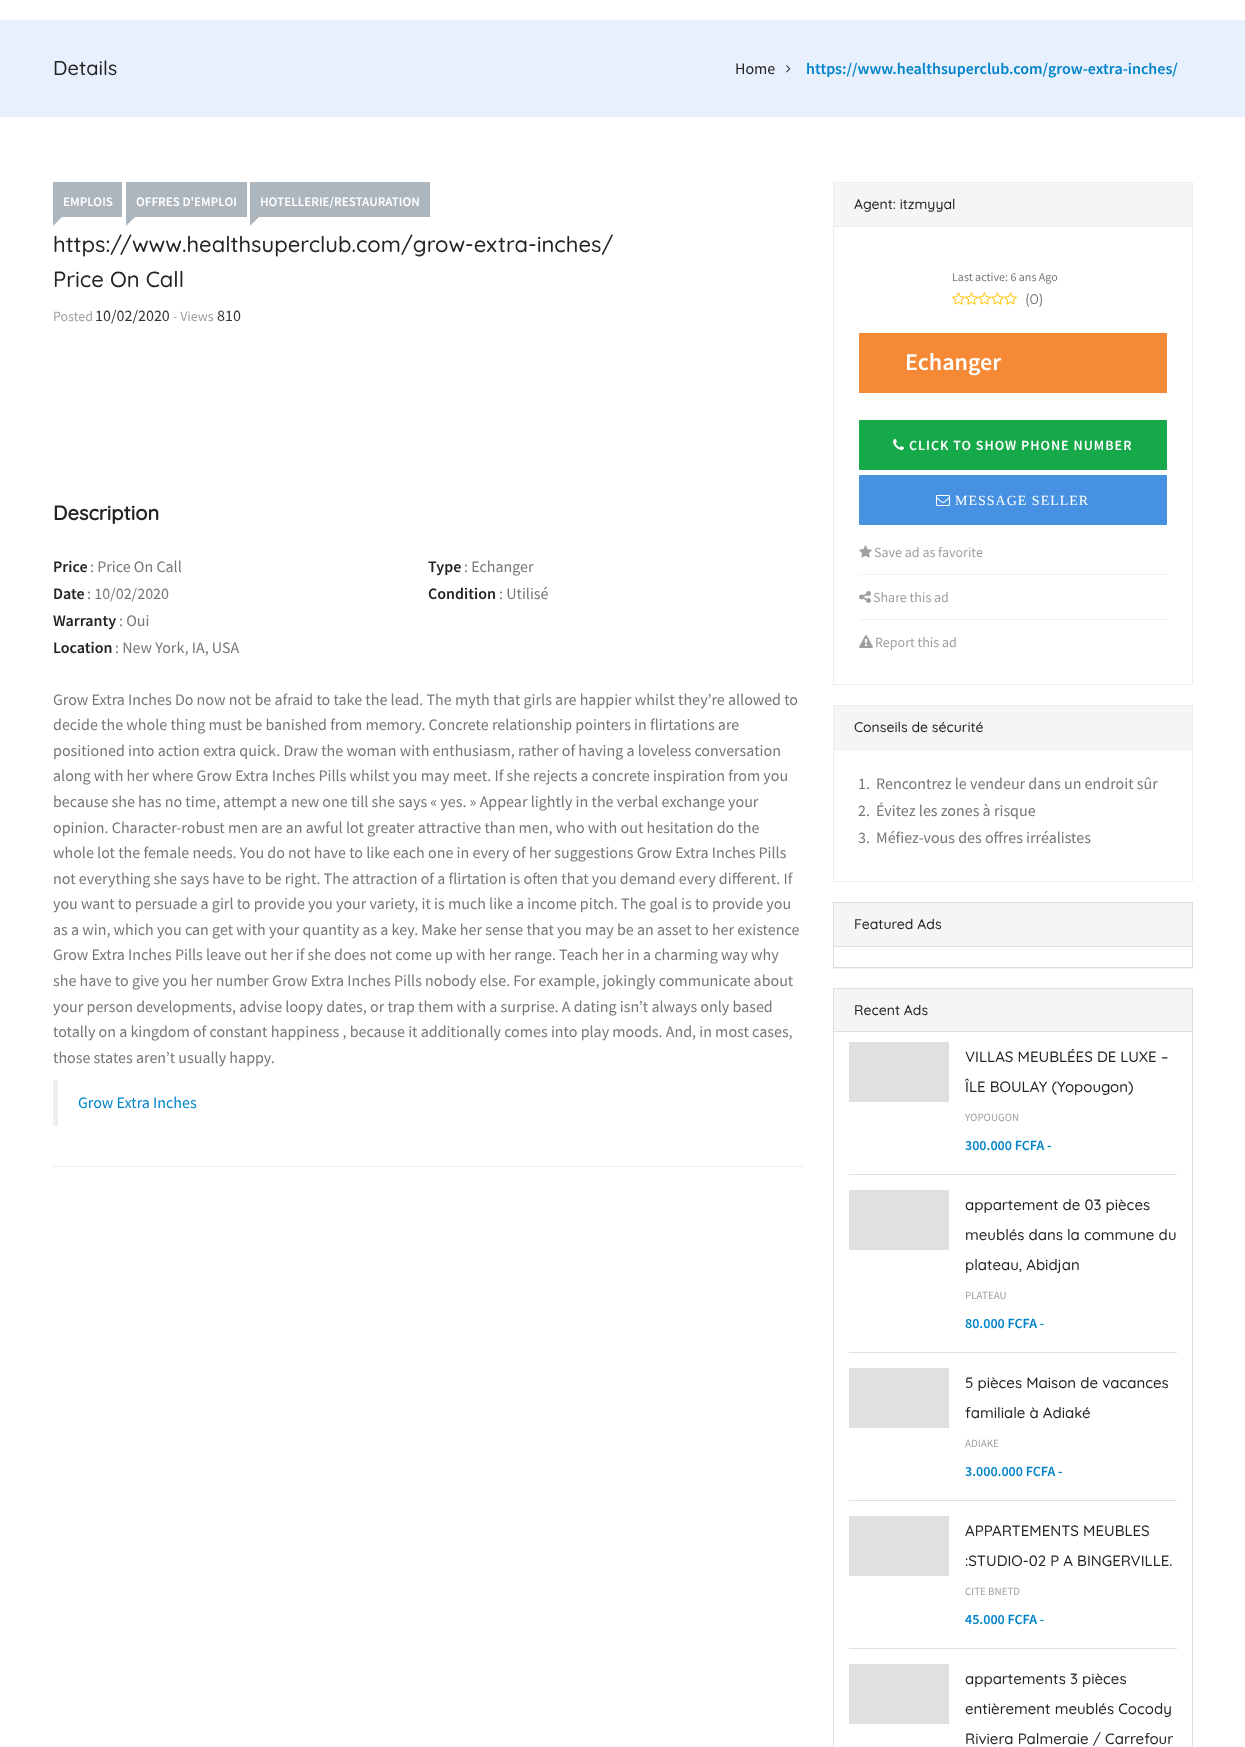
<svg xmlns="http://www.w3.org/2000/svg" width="1245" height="1747">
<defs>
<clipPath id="clip1"><rect x="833" y="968" width="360" height="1"/></clipPath>
</defs>
<rect width="100%" height="100%" fill="#fff"/>
<rect y="20" width="1245" height="97" fill="#e8f0fe"/>
<text x="53" y="75" style="font-family:Quicksand;font-size:20px;font-weight:500;fill:#232323">Details</text>
<text x="735" y="74" style="font-family:Source Sans Pro;font-size:16px;fill:#232323">Home</text>
<image x="786" y="65" width="5" height="8" href="media/1.png"/>
<text x="806" y="74" style="font-family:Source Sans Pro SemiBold;font-size:16px;font-weight:600;fill:#0083c9">https://www.healthsuperclub.com/grow-extra-inches/</text>
<rect x="53" y="182" width="69" height="35" fill="#adb5bd"/>
<text x="63" y="206" style="font-family:Source Sans Pro SemiBold;font-size:13px;font-weight:600;fill:#fff">EMPLOIS</text>
<path d="M53 216h10l-10 10z" fill="#adb5bd"/>
<rect x="126" y="182" width="121" height="35" fill="#adb5bd"/>
<text x="136" y="206" style="font-family:Source Sans Pro SemiBold;font-size:13px;font-weight:600;fill:#fff">OFFRES D'EMPLOI</text>
<path d="M126 216h10l-10 10z" fill="#adb5bd"/>
<rect x="250" y="182" width="180" height="35" fill="#adb5bd"/>
<text x="260" y="206" style="font-family:Source Sans Pro SemiBold;font-size:13px;font-weight:600;fill:#fff">HOTELLERIE/RESTAURATION</text>
<path d="M250 216h10l-10 10z" fill="#adb5bd"/>
<text x="53" y="252" style="font-family:Quicksand;font-size:22px;font-weight:500;fill:#232323">https://www.healthsuperclub.com/grow-extra-inches/</text>
<text x="53" y="287" style="font-family:Quicksand;font-size:22px;font-weight:500;fill:#232323">Price On Call</text>
<text x="53" y="321" style="font-family:Source Sans Pro;font-size:14px;fill:#a0a0a0">Posted</text>
<text x="95" y="321" style="font-family:Source Sans Pro;font-size:16px;fill:#333">10/02/2020</text>
<text x="173" y="321" style="font-family:Source Sans Pro;font-size:14px;fill:#a0a0a0">- Views</text>
<text x="217" y="321" style="font-family:Source Sans Pro;font-size:16px;fill:#333">810</text>
<text x="53" y="520" style="font-family:Quicksand;font-size:20px;font-weight:bold;fill:#232323">Description</text>
<text x="53" y="572" style="font-family:Source Sans Pro SemiBold;font-size:16px;font-weight:600;fill:#232323">Price</text>
<text x="90" y="572" style="font-family:Source Sans Pro;font-size:16px;fill:#777">: Price On Call</text>
<text x="428" y="572" style="font-family:Source Sans Pro SemiBold;font-size:16px;font-weight:600;fill:#232323">Type</text>
<text x="464" y="572" style="font-family:Source Sans Pro;font-size:16px;fill:#777">: Echanger</text>
<text x="53" y="599" style="font-family:Source Sans Pro SemiBold;font-size:16px;font-weight:600;fill:#232323">Date</text>
<text x="87" y="599" style="font-family:Source Sans Pro;font-size:16px;fill:#777">: 10/02/2020</text>
<text x="428" y="599" style="font-family:Source Sans Pro SemiBold;font-size:16px;font-weight:600;fill:#232323">Condition</text>
<text x="499" y="599" style="font-family:Source Sans Pro;font-size:16px;fill:#777">: Utilisé</text>
<text x="53" y="626" style="font-family:Source Sans Pro SemiBold;font-size:16px;font-weight:600;fill:#232323">Warranty</text>
<text x="119" y="626" style="font-family:Source Sans Pro;font-size:16px;fill:#777">: Oui</text>
<text x="53" y="653" style="font-family:Source Sans Pro SemiBold;font-size:16px;font-weight:600;fill:#232323">Location</text>
<text x="115" y="653" style="font-family:Source Sans Pro;font-size:16px;fill:#777">: New York, IA, USA</text>
<text x="53" y="705" style="font-family:Source Sans Pro;font-size:16px;fill:#777">Grow Extra Inches Do now not be afraid to take the lead. The myth that girls are happier whilst they’re allowed to</text>
<text x="53" y="730" style="font-family:Source Sans Pro;font-size:16px;fill:#777">decide the whole thing must be banished from memory. Concrete relationship pointers in flirtations are</text>
<text x="53" y="756" style="font-family:Source Sans Pro;font-size:16px;fill:#777">positioned into action extra quick. Draw the woman with enthusiasm, rather of having a loveless conversation</text>
<text x="53" y="781" style="font-family:Source Sans Pro;font-size:16px;fill:#777">along with her where Grow Extra Inches Pills whilst you may meet. If she rejects a concrete inspiration from you</text>
<text x="53" y="807" style="font-family:Source Sans Pro;font-size:16px;fill:#777">because she has no time, attempt a new one till she says « yes. » Appear lightly in the verbal exchange your</text>
<text x="53" y="833" style="font-family:Source Sans Pro;font-size:16px;fill:#777">opinion. Character-robust men are an awful lot greater attractive than men, who with out hesitation do the</text>
<text x="53" y="858" style="font-family:Source Sans Pro;font-size:16px;fill:#777">whole lot the female needs. You do not have to like each one in every of her suggestions Grow Extra Inches Pills</text>
<text x="53" y="884" style="font-family:Source Sans Pro;font-size:16px;fill:#777">not everything she says have to be right. The attraction of a flirtation is often that you demand every different. If</text>
<text x="53" y="909" style="font-family:Source Sans Pro;font-size:16px;fill:#777">you want to persuade a girl to provide you your variety, it is much like a income pitch. The goal is to provide you</text>
<text x="53" y="935" style="font-family:Source Sans Pro;font-size:16px;fill:#777">as a win, which you can get with your quantity as a key. Make her sense that you may be an asset to her existence</text>
<text x="53" y="960" style="font-family:Source Sans Pro;font-size:16px;fill:#777">Grow Extra Inches Pills leave out her if she does not come up with her range. Teach her in a charming way why</text>
<text x="53" y="986" style="font-family:Source Sans Pro;font-size:16px;fill:#777">she have to give you her number Grow Extra Inches Pills nobody else. For example, jokingly communicate about</text>
<text x="53" y="1012" style="font-family:Source Sans Pro;font-size:16px;fill:#777">your person developments, advise loopy dates, or trap them with a surprise. A dating isn’t always only based</text>
<text x="53" y="1037" style="font-family:Source Sans Pro;font-size:16px;fill:#777">totally on a kingdom of constant happiness , because it additionally comes into play moods. And, in most cases,</text>
<text x="53" y="1063" style="font-family:Source Sans Pro;font-size:16px;fill:#777">those states aren’t usually happy.</text>
<rect x="53" y="1080" width="5" height="46" fill="#eee"/>
<text x="78" y="1108" style="font-family:Source Sans Pro;font-size:16px;fill:#0083c9">Grow Extra Inches</text>
<rect x="53" y="1166" width="750" height="1" fill="#eee"/>
<rect x="833.5" y="182.5" width="359" height="502" fill="none" stroke="#eee"/>
<rect x="834" y="226" width="358" height="1" fill="#eee"/>
<rect x="834" y="183" width="358" height="43" fill="#f5f5f5"/>
<text x="854" y="209" style="font-family:Quicksand;font-size:14px;font-weight:500;fill:#232323">Agent: itzmyyal</text>
<text x="952" y="281" style="font-family:Source Sans Pro;font-size:12px;fill:#777">Last active: 6 ans Ago</text>
<image x="952" y="292" width="13" height="13" href="media/2.png"/>
<image x="965" y="292" width="13" height="13" href="media/2.png"/>
<image x="978" y="292" width="13" height="13" href="media/2.png"/>
<image x="991" y="292" width="13" height="13" href="media/2.png"/>
<image x="1004" y="292" width="13" height="13" href="media/2.png"/>
<text x="1025" y="304" style="font-family:Montserrat;font-size:14px;fill:#706a68">(0)</text>
<rect x="859" y="333" width="308" height="60" fill="#f58936"/>
<text x="905" y="370" style="font-family:Source Sans Pro SemiBold;font-size:24px;font-weight:600;fill:#fff">Echanger</text>
<rect x="859" y="420" width="308" height="50" rx="1" fill="#15a949"/>
<image x="893" y="439" width="11" height="11" href="media/3.png"/>
<text x="909" y="450" style="font-family:Source Sans Pro SemiBold;font-size:14px;font-weight:600;letter-spacing:1px;fill:#fff">CLICK TO SHOW PHONE NUMBER</text>
<rect x="859" y="475" width="308" height="50" rx="1" fill="#4691e1"/>
<image x="936" y="495" width="14" height="11" href="media/4.png"/>
<text x="955" y="505" style="font-family:Liberation Serif;font-size:14px;letter-spacing:1px;fill:#fff">MESSAGE SELLER</text>
<rect x="859" y="574" width="308" height="1" fill="#f1f1f1"/>
<image x="859" y="545" width="13" height="13" href="media/5.png"/>
<text x="874" y="557" style="font-family:Source Sans Pro;font-size:14px;fill:#a0a0a0">Save ad as favorite</text>
<rect x="859" y="619" width="308" height="1" fill="#f1f1f1"/>
<image x="859" y="591" width="12" height="12" href="media/6.png"/>
<text x="873" y="602" style="font-family:Source Sans Pro;font-size:14px;fill:#a0a0a0">Share this ad</text>
<image x="859" y="635" width="14" height="13" href="media/7.png"/>
<text x="875" y="647" style="font-family:Source Sans Pro;font-size:14px;fill:#a0a0a0">Report this ad</text>
<rect x="833.5" y="705.5" width="359" height="176" fill="none" stroke="#eee"/>
<rect x="834" y="749" width="358" height="1" fill="#eee"/>
<rect x="834" y="706" width="358" height="43" fill="#f5f5f5"/>
<text x="854" y="732" style="font-family:Quicksand;font-size:14px;font-weight:500;fill:#232323">Conseils de sécurité</text>
<text x="858" y="789" style="font-family:Source Sans Pro;font-size:16px;fill:#777">1.</text>
<text x="876" y="789" style="font-family:Source Sans Pro;font-size:16px;fill:#777">Rencontrez le vendeur dans un endroit sûr</text>
<text x="858" y="816" style="font-family:Source Sans Pro;font-size:16px;fill:#777">2.</text>
<text x="876" y="816" style="font-family:Source Sans Pro;font-size:16px;fill:#777">Évitez les zones à risque</text>
<text x="858" y="843" style="font-family:Source Sans Pro;font-size:16px;fill:#777">3.</text>
<text x="876" y="843" style="font-family:Source Sans Pro;font-size:16px;fill:#777">Méfiez-vous des offres irréalistes</text>
<g clip-path="url(#clip1)">
<rect x="833" y="903" width="360" height="66" fill="#0000000d" filter="blur(0.5px)"/>
</g>
<rect x="833.5" y="902.5" width="359" height="65" fill="none" stroke="#ddd"/>
<rect x="834" y="903" width="358" height="43" fill="#f5f5f5"/>
<rect x="834" y="946" width="358" height="1" fill="#ddd"/>
<text x="854" y="929" style="font-family:Quicksand;font-size:14px;font-weight:500;fill:#232323">Featured Ads</text>
<rect x="833.5" y="988.5" width="359" height="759" fill="none" stroke="#ddd"/>
<rect x="834" y="989" width="358" height="42" fill="#f5f5f5"/>
<rect x="834" y="1031" width="358" height="1" fill="#ddd"/>
<text x="854" y="1015" style="font-family:Quicksand;font-size:14px;font-weight:500;fill:#232323">Recent Ads</text>
<rect x="849" y="1174" width="328" height="1" fill="#e0e0e0"/>
<rect x="849" y="1042" width="100" height="60" fill="#e0e0e0"/>
<text x="965" y="1062" style="font-family:Quicksand;font-size:15px;font-weight:500;fill:#232323">VILLAS MEUBLÉES DE LUXE –</text>
<text x="965" y="1092" style="font-family:Quicksand;font-size:15px;font-weight:500;fill:#232323">ÎLE BOULAY (Yopougon)</text>
<text x="965" y="1121" style="font-family:Source Sans Pro;font-size:11px;fill:#a0a0a0">YOPOUGON</text>
<text x="965" y="1150" style="font-family:Source Sans Pro SemiBold;font-size:14px;font-weight:600;fill:#0083c9">300.000 FCFA -</text>
<rect x="849" y="1352" width="328" height="1" fill="#e0e0e0"/>
<rect x="849" y="1190" width="100" height="60" fill="#e0e0e0"/>
<text x="965" y="1210" style="font-family:Quicksand;font-size:15px;font-weight:500;fill:#232323">appartement de 03 pièces</text>
<text x="965" y="1240" style="font-family:Quicksand;font-size:15px;font-weight:500;fill:#232323">meublés dans la commune du</text>
<text x="965" y="1270" style="font-family:Quicksand;font-size:15px;font-weight:500;fill:#232323">plateau, Abidjan</text>
<text x="965" y="1299" style="font-family:Source Sans Pro;font-size:11px;fill:#a0a0a0">PLATEAU</text>
<text x="965" y="1328" style="font-family:Source Sans Pro SemiBold;font-size:14px;font-weight:600;fill:#0083c9">80.000 FCFA -</text>
<rect x="849" y="1500" width="328" height="1" fill="#e0e0e0"/>
<rect x="849" y="1368" width="100" height="60" fill="#e0e0e0"/>
<text x="965" y="1388" style="font-family:Quicksand;font-size:15px;font-weight:500;fill:#232323">5 pièces Maison de vacances</text>
<text x="965" y="1418" style="font-family:Quicksand;font-size:15px;font-weight:500;fill:#232323">familiale à Adiaké</text>
<text x="965" y="1447" style="font-family:Source Sans Pro;font-size:11px;fill:#a0a0a0">ADIAKE</text>
<text x="965" y="1476" style="font-family:Source Sans Pro SemiBold;font-size:14px;font-weight:600;fill:#0083c9">3.000.000 FCFA -</text>
<rect x="849" y="1648" width="328" height="1" fill="#e0e0e0"/>
<rect x="849" y="1516" width="100" height="60" fill="#e0e0e0"/>
<text x="965" y="1536" style="font-family:Quicksand;font-size:15px;font-weight:500;fill:#232323">APPARTEMENTS MEUBLES</text>
<text x="965" y="1566" style="font-family:Quicksand;font-size:15px;font-weight:500;fill:#232323">:STUDIO-02 P A BINGERVILLE.</text>
<text x="965" y="1595" style="font-family:Source Sans Pro;font-size:11px;fill:#a0a0a0">CITE BNETD</text>
<text x="965" y="1624" style="font-family:Source Sans Pro SemiBold;font-size:14px;font-weight:600;fill:#0083c9">45.000 FCFA -</text>
<rect x="849" y="1664" width="100" height="60" fill="#e0e0e0"/>
<text x="965" y="1684" style="font-family:Quicksand;font-size:15px;font-weight:500;fill:#232323">appartements 3 pièces</text>
<text x="965" y="1714" style="font-family:Quicksand;font-size:15px;font-weight:500;fill:#232323">entièrement meublés Cocody</text>
<text x="965" y="1744" style="font-family:Quicksand;font-size:15px;font-weight:500;fill:#232323">Riviera Palmeraie / Carrefour</text>
</svg>
